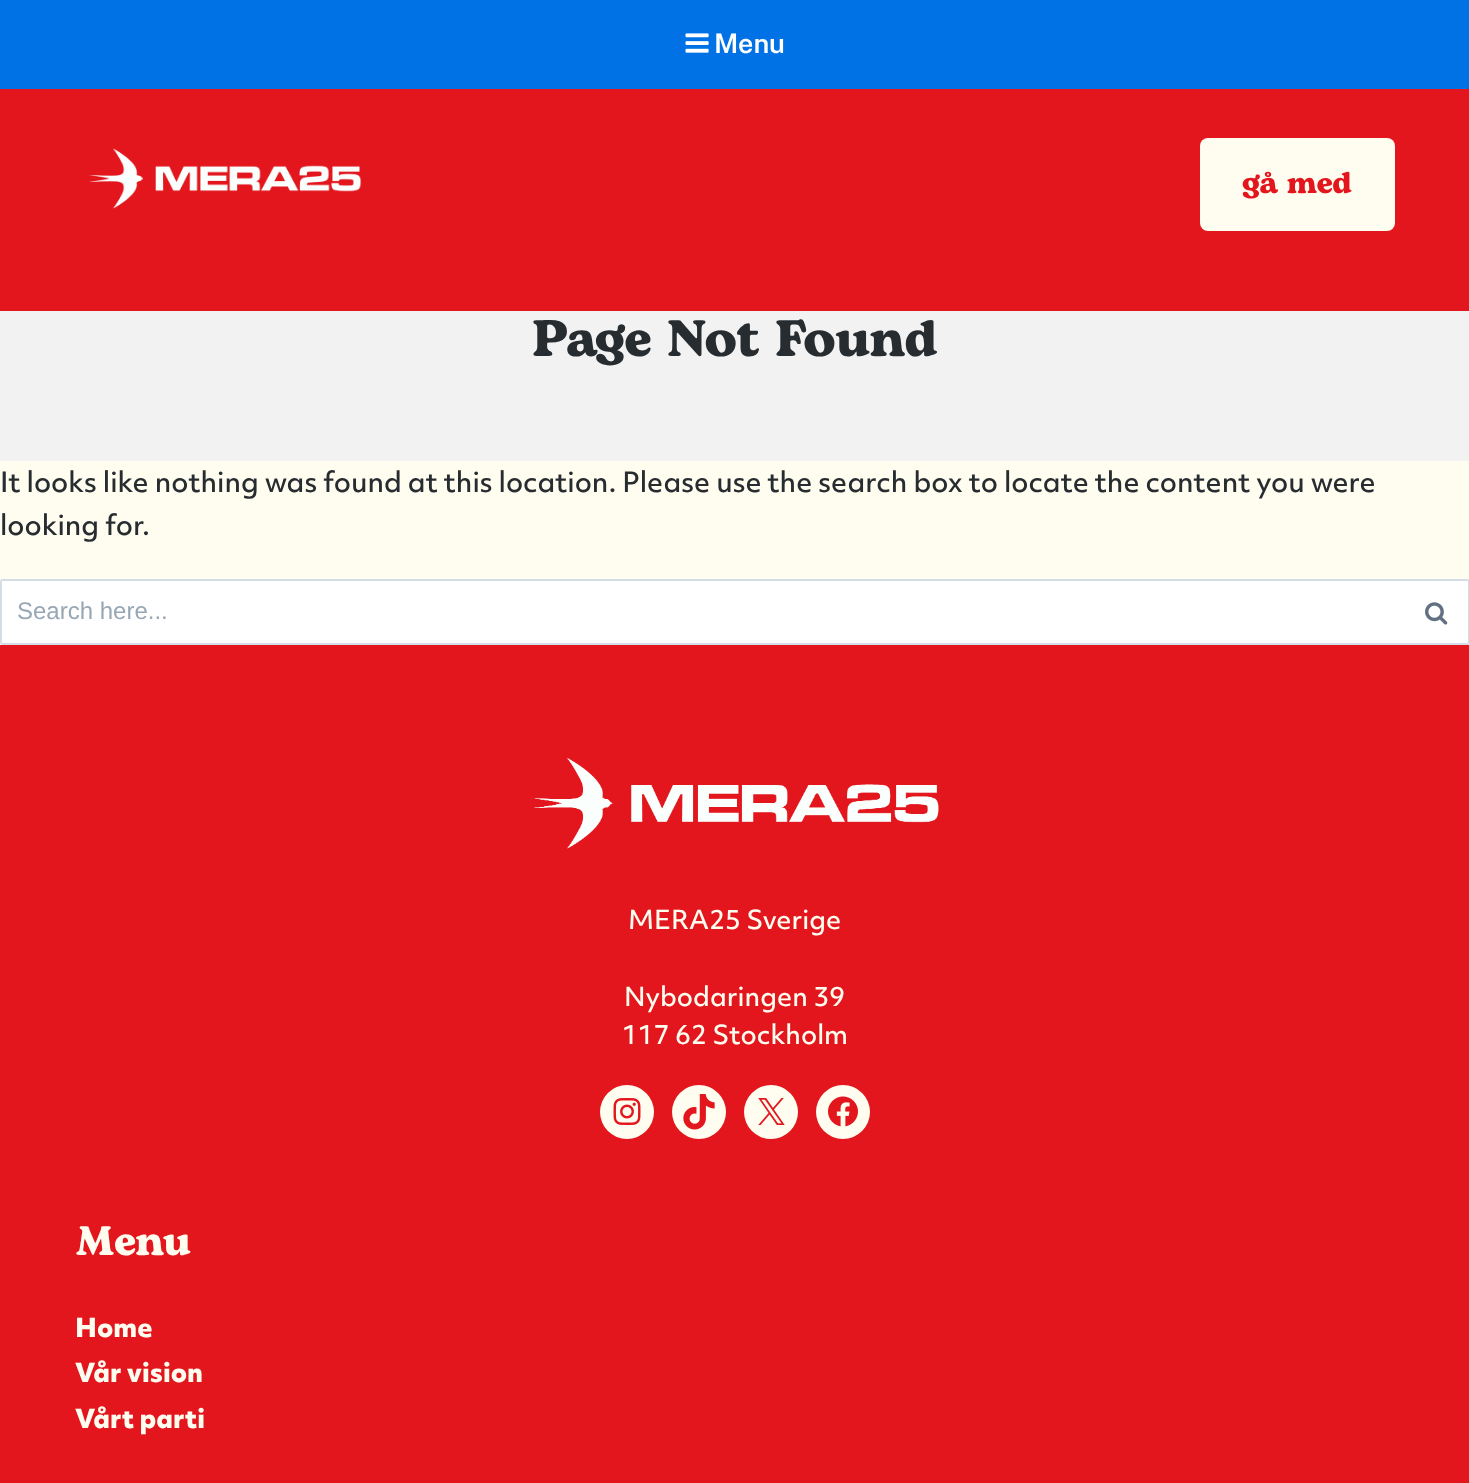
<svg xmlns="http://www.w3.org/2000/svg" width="1469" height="1483">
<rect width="100%" height="100%" fill="#fefdef"/>
<rect y="311" width="1469" height="150" fill="#f2f2f2"/>
<rect y="89" width="1469" height="222" fill="#e3151d"/>
<rect width="1469" height="89" fill="#0072e5"/>
<image x="685" y="33" width="24" height="20" href="media/1.png"/>
<text x="714" y="53" style="font-family:Public Sans;font-size:27px;font-weight:600;fill:#fff">Menu</text>
<image x="89" y="148" width="273" height="61" href="media/2.png"/>
<rect x="1200" y="138" width="195" height="93" rx="8" fill="#fefdef"/>
<text x="1242" y="193" style="font-family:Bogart;font-size:30px;font-weight:bold;fill:#e3151d">gå med</text>
<text x="532" y="356" style="font-family:Bogart;font-size:51px;font-weight:bold;fill:#272c30">Page Not Found</text>
<text x="0" y="492" style="font-family:'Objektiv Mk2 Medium';font-size:27px;font-weight:500;fill:#272c30">It looks like nothing was found at this location. Please use the search box to locate the content you were</text>
<text x="0" y="535" style="font-family:'Objektiv Mk2 Medium';font-size:27px;font-weight:500;fill:#272c30">looking for.</text>
<rect x="1" y="580" width="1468" height="64" rx="2" fill="#fff" stroke="#d4dde5" stroke-width="2"/>
<text x="17" y="619" style="font-family:Liberation Sans;font-size:24px;fill:#97a7b5">Search here...</text>
<image x="1425" y="602" width="23" height="23" href="media/3.png"/>
<rect y="645" width="1469" height="838" fill="#e3151d"/>
<image x="531" y="757" width="408" height="92" href="media/4.png"/>
<text x="628" y="929" style="font-family:'Objektiv Mk2 Medium';font-size:25.5px;font-weight:500;fill:#fefdef">MERA25 Sverige</text>
<text x="624" y="1006" style="font-family:'Objektiv Mk2 Medium';font-size:25.5px;font-weight:500;fill:#fefdef">Nybodaringen 39</text>
<text x="622" y="1044" style="font-family:'Objektiv Mk2 Medium';font-size:25.5px;font-weight:500;fill:#fefdef">117 62 Stockholm</text>
<circle cx="627" cy="1112" r="27" fill="#fefdef"/>
<image x="613" y="1098" width="28" height="27" href="media/5.png"/>
<circle cx="699" cy="1112" r="27" fill="#fefdef"/>
<image x="683" y="1094" width="32" height="36" href="media/6.png"/>
<circle cx="771" cy="1112" r="27" fill="#fefdef"/>
<image x="758" y="1098" width="27" height="27" href="media/7.png"/>
<circle cx="843" cy="1112" r="27" fill="#fefdef"/>
<image x="828" y="1096" width="30" height="31" href="media/8.png"/>
<text x="75" y="1255" style="font-family:Bogart;font-size:41px;font-weight:bold;fill:#fefdef">Menu</text>
<text x="75" y="1337" style="font-family:'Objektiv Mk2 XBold';font-size:25.5px;font-weight:bold;fill:#fefdef">Home</text>
<text x="75" y="1382" style="font-family:'Objektiv Mk2 XBold';font-size:25.5px;font-weight:bold;fill:#fefdef">Vår vision</text>
<text x="75" y="1428" style="font-family:'Objektiv Mk2 XBold';font-size:25.5px;font-weight:bold;fill:#fefdef">Vårt parti</text>
</svg>
